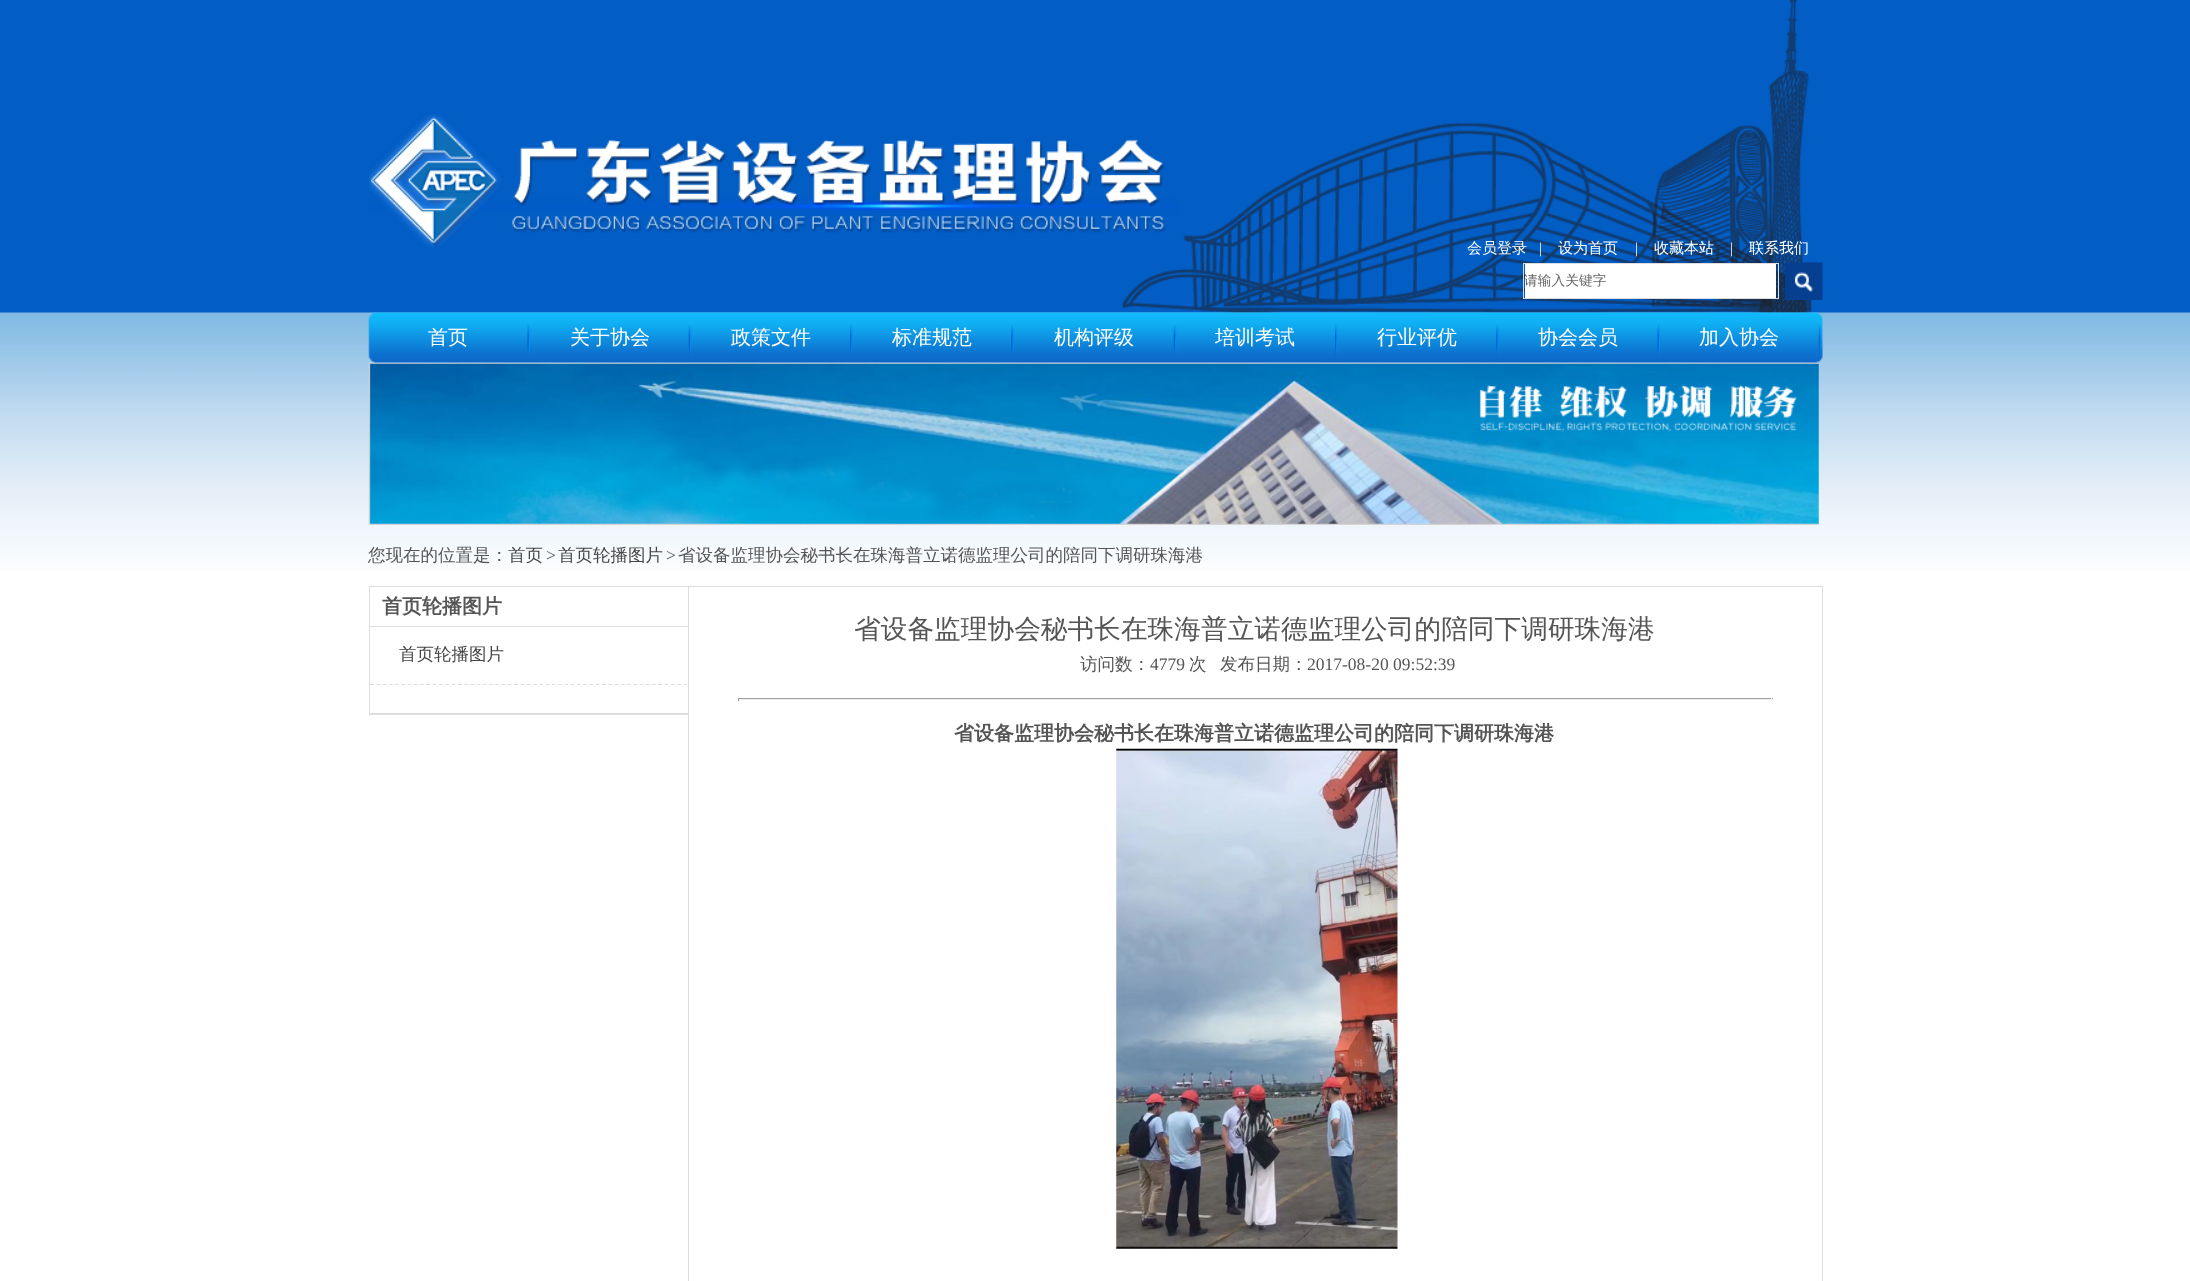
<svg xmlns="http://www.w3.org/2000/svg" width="2190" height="1281">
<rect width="100%" height="100%" fill="#fff"/>
<rect width="2190" height="313" fill="#025dc4"/>
<image x="0" y="312" width="2190" height="259" href="media/4.png"/>
<image x="1122" y="0" width="690" height="313" href="media/2.png"/>
<image x="369" y="114" width="812" height="133" href="media/1.png"/>
<text x="1467" y="253" style="font-family:WenQuanYi Zen Hei;font-size:15px;font-weight:500;fill:#fff">会员登录</text>
<text x="1539" y="253" style="font-family:Liberation Serif;font-size:15px;fill:#fff">|</text>
<text x="1558" y="253" style="font-family:WenQuanYi Zen Hei;font-size:15px;font-weight:500;fill:#fff">设为首页</text>
<text x="1635" y="253" style="font-family:Liberation Serif;font-size:15px;fill:#fff">|</text>
<text x="1654" y="253" style="font-family:WenQuanYi Zen Hei;font-size:15px;font-weight:500;fill:#fff">收藏本站</text>
<text x="1730" y="253" style="font-family:Liberation Serif;font-size:15px;fill:#fff">|</text>
<text x="1749" y="253" style="font-family:WenQuanYi Zen Hei;font-size:15px;font-weight:500;fill:#fff">联系我们</text>
<rect x="1523.5" y="263.5" width="255" height="35" fill="none" stroke="#ddd"/>
<rect x="1525" y="264" width="251" height="34" fill="#fff"/>
<text x="1524" y="285" style="font-family:WenQuanYi Zen Hei;font-size:13.75px;font-weight:500;fill:#666">请输入关键字</text>
<image x="1785" y="262" width="38" height="38" href="media/3.png"/>
<image x="368" y="362" width="1451" height="163" href="media/11.png"/>
<image x="368" y="312" width="1455" height="51" href="media/5.png"/>
<image x="527" y="324" width="3" height="32" href="media/6.png"/>
<text x="428" y="344" style="font-family:WenQuanYi Zen Hei;font-size:20px;font-weight:500;fill:#fff">首页</text>
<image x="688" y="324" width="4" height="31" href="media/7.png"/>
<text x="570" y="344" style="font-family:WenQuanYi Zen Hei;font-size:20px;font-weight:500;fill:#fff">关于协会</text>
<image x="850" y="324" width="3" height="31" href="media/8.png"/>
<text x="731" y="344" style="font-family:WenQuanYi Zen Hei;font-size:20px;font-weight:500;fill:#fff">政策文件</text>
<image x="1011" y="324" width="3" height="31" href="media/9.png"/>
<text x="892" y="344" style="font-family:WenQuanYi Zen Hei;font-size:20px;font-weight:500;fill:#fff">标准规范</text>
<image x="1173" y="324" width="4" height="31" href="media/7.png"/>
<text x="1054" y="344" style="font-family:WenQuanYi Zen Hei;font-size:20px;font-weight:500;fill:#fff">机构评级</text>
<image x="1335" y="324" width="3" height="31" href="media/8.png"/>
<text x="1215" y="344" style="font-family:WenQuanYi Zen Hei;font-size:20px;font-weight:500;fill:#fff">培训考试</text>
<image x="1496" y="324" width="3" height="31" href="media/9.png"/>
<text x="1377" y="344" style="font-family:WenQuanYi Zen Hei;font-size:20px;font-weight:500;fill:#fff">行业评优</text>
<image x="1657" y="324" width="3" height="32" href="media/6.png"/>
<text x="1538" y="344" style="font-family:WenQuanYi Zen Hei;font-size:20px;font-weight:500;fill:#fff">协会会员</text>
<image x="1818" y="324" width="3" height="31" href="media/10.png"/>
<text x="1699" y="344" style="font-family:WenQuanYi Zen Hei;font-size:20px;font-weight:500;fill:#fff">加入协会</text>
<text x="368" y="561" style="font-family:WenQuanYi Zen Hei;font-size:17.5px;font-weight:500;fill:#555">您现在的位置是：</text>
<text x="508" y="561" style="font-family:WenQuanYi Zen Hei;font-size:17.5px;font-weight:500;fill:#444">首页</text>
<text x="546" y="561" style="font-family:Liberation Serif;font-size:17.5px;fill:#555">&gt;</text>
<text x="558" y="561" style="font-family:WenQuanYi Zen Hei;font-size:17.5px;font-weight:500;fill:#444">首页轮播图片</text>
<text x="666" y="561" style="font-family:Liberation Serif;font-size:17.5px;fill:#555">&gt;</text>
<text x="678" y="561" style="font-family:WenQuanYi Zen Hei;font-size:17.5px;font-weight:500;fill:#555">省设备监理协会秘书长在珠海普立诺德监理公司的陪同下调研珠海港</text>
<rect x="688.5" y="586.5" width="1134" height="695" fill="none" stroke="#ddd"/>
<rect x="369.5" y="586.5" width="319" height="128" fill="none" stroke="#ddd"/>
<rect x="370" y="713" width="318" height="1" fill="#ddd"/>
<rect x="370" y="626" width="318" height="1" fill="#ddd"/>
<text x="382" y="613" style="font-family:WenQuanYi Zen Hei;font-size:20px;font-weight:bold;fill:#555">首页轮播图片</text>
<path d="M370 684.5h317.5" fill="none" stroke="#ddd" stroke-width="1.2" stroke-dasharray="3.75 2.52"/>
<text x="399" y="660" style="font-family:WenQuanYi Zen Hei;font-size:17.5px;font-weight:500;fill:#444">首页轮播图片</text>
<text x="854" y="638" style="font-family:WenQuanYi Zen Hei;font-size:26.7px;font-weight:500;fill:#555">省设备监理协会秘书长在珠海普立诺德监理公司的陪同下调研珠海港</text>
<text x="1080" y="670" style="font-family:WenQuanYi Zen Hei;font-size:17.5px;font-weight:500;fill:#555">访问数：</text>
<text x="1150" y="670" style="font-family:Liberation Serif;font-size:17.5px;fill:#555">4779</text>
<text x="1189" y="670" style="font-family:WenQuanYi Zen Hei;font-size:17.5px;font-weight:500;fill:#555">次</text>
<text x="1220" y="670" style="font-family:WenQuanYi Zen Hei;font-size:17.5px;font-weight:500;fill:#555">发布日期：</text>
<text x="1307" y="670" style="font-family:Liberation Serif;font-size:17.5px;fill:#555">2017-08-20 09:52:39</text>
<rect x="738" y="698" width="1035" height="1" fill="#9f9f9f"/>
<rect x="1771" y="698" width="1" height="3" fill="#eee"/>
<rect x="738" y="699" width="1035" height="1" fill="#eee"/>
<rect x="738" y="698" width="1" height="3" fill="#9f9f9f"/>
<text x="954" y="740" style="font-family:WenQuanYi Zen Hei;font-size:20px;font-weight:bold;fill:#555">省设备监理协会秘书长在珠海普立诺德监理公司的陪同下调研珠海港</text>
<image x="1116" y="748" width="282" height="501" href="media/12.png"/>
</svg>
